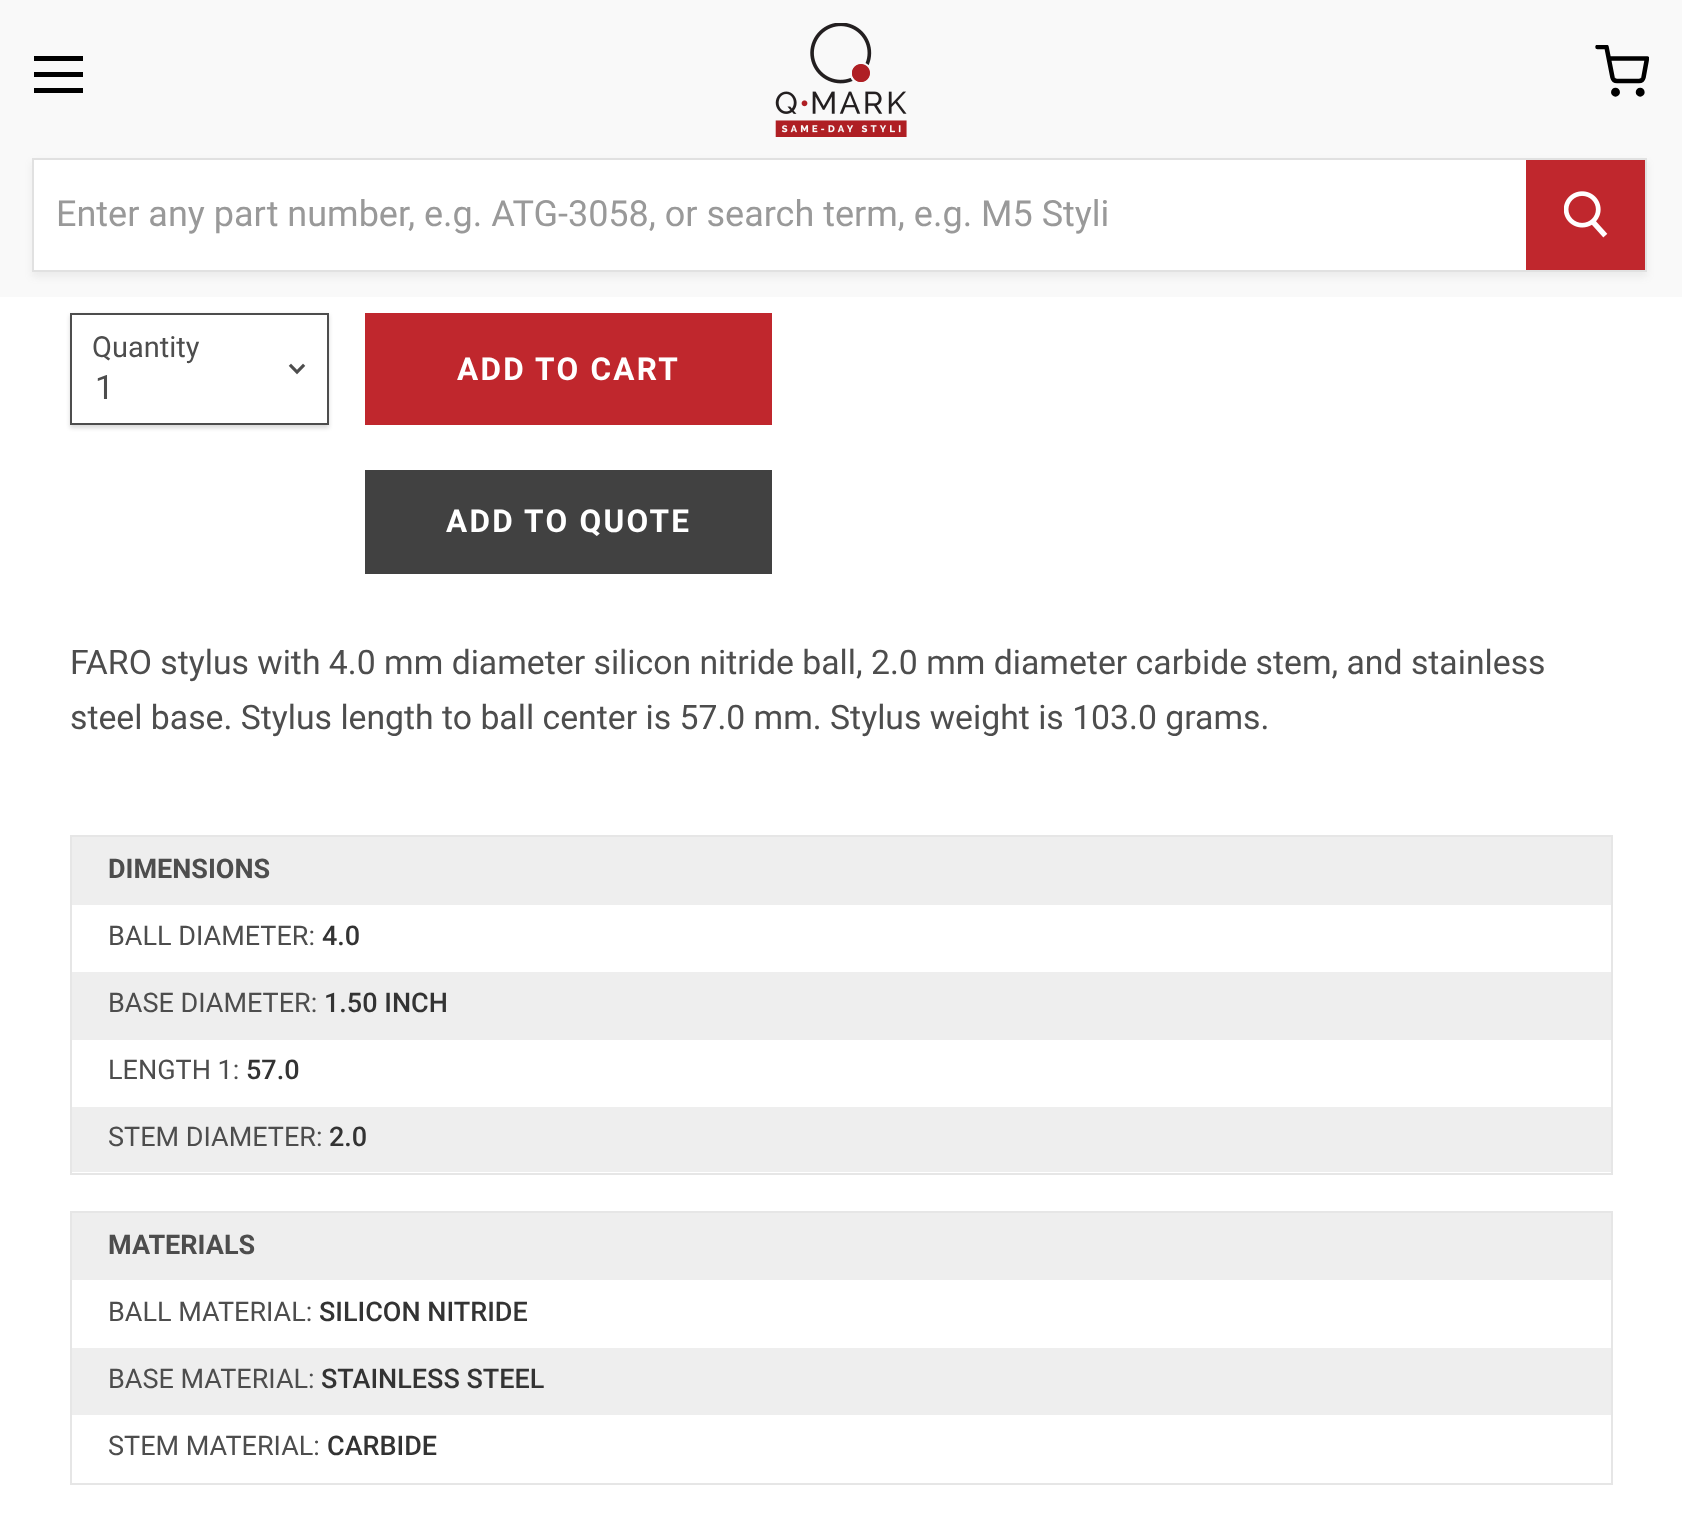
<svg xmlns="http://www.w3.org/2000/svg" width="1682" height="1520">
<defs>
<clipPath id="clip1"><rect x="1595" y="45" width="54" height="54"/></clipPath>
</defs>
<rect width="100%" height="100%" fill="#fff"/>
<rect width="1682" height="297" fill="#f9f9f9"/>
<rect x="34" y="56" width="49" height="5" fill="#000"/>
<rect x="34" y="72" width="49" height="5" fill="#000"/>
<rect x="34" y="88" width="49" height="5" fill="#000"/>
<image x="775" y="23" width="132" height="114" href="media/1.png"/>
<circle cx="1615.5" cy="92.2" r="2.2" fill="none" stroke="#000" stroke-width="4.5"/>
<circle cx="1640.2" cy="92.2" r="2.2" fill="none" stroke="#000" stroke-width="4.5"/>
<g clip-path="url(#clip1)">
<path d="M1597.5 47h9l6 30.5c.5 2 2.5 3.5 4.5 3.5h22c2 0 4-1.5 4.5-3.5l3.5-19h-38" fill="none" stroke="#000" stroke-width="4.5" stroke-linecap="round" stroke-linejoin="round"/>
</g>
<rect x="32" y="162" width="1615" height="115" fill="#7f7f7f1c" filter="blur(3.5px)"/>
<rect x="33" y="159" width="1613" height="112" fill="none" stroke="#e1e1e1" stroke-width="2"/>
<rect x="34" y="160" width="1492" height="110" fill="#fff"/>
<text x="56" y="226" style="font-family:Roboto;font-size:36px;fill:#999">Enter any part number, e.g. ATG-3058, or search term, e.g. M5 Styli</text>
<rect x="1526" y="160" width="119" height="110" fill="#c0272d"/>
<image x="1564" y="191" width="44" height="47" href="media/2.png"/>
<rect x="70" y="315" width="259" height="113" fill="#00000026" filter="blur(2px)"/>
<rect x="71" y="314" width="257" height="110" fill="#fff" stroke="#4d4d4d" stroke-width="2"/>
<text x="92" y="357" style="font-family:Roboto;font-size:29px;fill:#4d4d4d">Quantity</text>
<image x="288" y="363" width="18" height="12" href="media/3.png"/>
<text x="95" y="399" style="font-family:Roboto;font-size:33.75px;fill:#4d4d4d">1</text>
<rect x="365" y="313" width="407" height="112" fill="#c0272d"/>
<text x="457" y="380" style="font-family:Roboto;font-size:31.5px;font-weight:bold;letter-spacing:2.25px;fill:#fff">ADD TO CART</text>
<rect x="365" y="470" width="407" height="104" fill="#414141"/>
<text x="446" y="532" style="font-family:Roboto;font-size:31.5px;font-weight:bold;letter-spacing:2.25px;fill:#fff">ADD TO QUOTE</text>
<text x="70" y="674" style="font-family:Roboto;font-size:33.75px;fill:#4d4d4d">FARO stylus with 4.0 mm diameter silicon nitride ball, 2.0 mm diameter carbide stem, and stainless</text>
<text x="70" y="729" style="font-family:Roboto;font-size:33.75px;fill:#4d4d4d">steel base. Stylus length to ball center is 57.0 mm. Stylus weight is 103.0 grams.</text>
<rect x="71" y="836" width="1541" height="338" fill="none" stroke="#e6e6e6" stroke-width="2"/>
<rect x="72" y="837" width="1539" height="68" fill="#eee"/>
<text x="108" y="878" style="font-family:Roboto;font-size:27px;font-weight:bold;fill:#4d4d4d">DIMENSIONS</text>
<text x="108" y="945" style="font-family:Roboto;font-size:27px;fill:#4d4d4d">BALL DIAMETER:</text>
<text x="322" y="945" style="font-family:Roboto;font-size:27px;font-weight:500;fill:#333">4.0</text>
<rect x="72" y="972" width="1539" height="68" fill="#eee"/>
<text x="108" y="1012" style="font-family:Roboto;font-size:27px;fill:#4d4d4d">BASE DIAMETER:</text>
<text x="324" y="1012" style="font-family:Roboto;font-size:27px;font-weight:500;fill:#333">1.50 INCH</text>
<text x="108" y="1079" style="font-family:Roboto;font-size:27px;fill:#4d4d4d">LENGTH 1:</text>
<text x="246" y="1079" style="font-family:Roboto;font-size:27px;font-weight:500;fill:#333">57.0</text>
<rect x="72" y="1107" width="1539" height="65" fill="#eee"/>
<text x="108" y="1146" style="font-family:Roboto;font-size:27px;fill:#4d4d4d">STEM DIAMETER:</text>
<text x="329" y="1146" style="font-family:Roboto;font-size:27px;font-weight:500;fill:#333">2.0</text>
<rect x="71" y="1212" width="1541" height="272" fill="none" stroke="#e6e6e6" stroke-width="2"/>
<rect x="72" y="1213" width="1539" height="67" fill="#eee"/>
<text x="108" y="1254" style="font-family:Roboto;font-size:27px;font-weight:bold;fill:#4d4d4d">MATERIALS</text>
<text x="108" y="1321" style="font-family:Roboto;font-size:27px;fill:#4d4d4d">BALL MATERIAL:</text>
<text x="319" y="1321" style="font-family:Roboto;font-size:27px;font-weight:500;fill:#333">SILICON NITRIDE</text>
<rect x="72" y="1348" width="1539" height="67" fill="#eee"/>
<text x="108" y="1388" style="font-family:Roboto;font-size:27px;fill:#4d4d4d">BASE MATERIAL:</text>
<text x="321" y="1388" style="font-family:Roboto;font-size:27px;font-weight:500;fill:#333">STAINLESS STEEL</text>
<text x="108" y="1455" style="font-family:Roboto;font-size:27px;fill:#4d4d4d">STEM MATERIAL:</text>
<text x="327" y="1455" style="font-family:Roboto;font-size:27px;font-weight:500;fill:#333">CARBIDE</text>
</svg>
